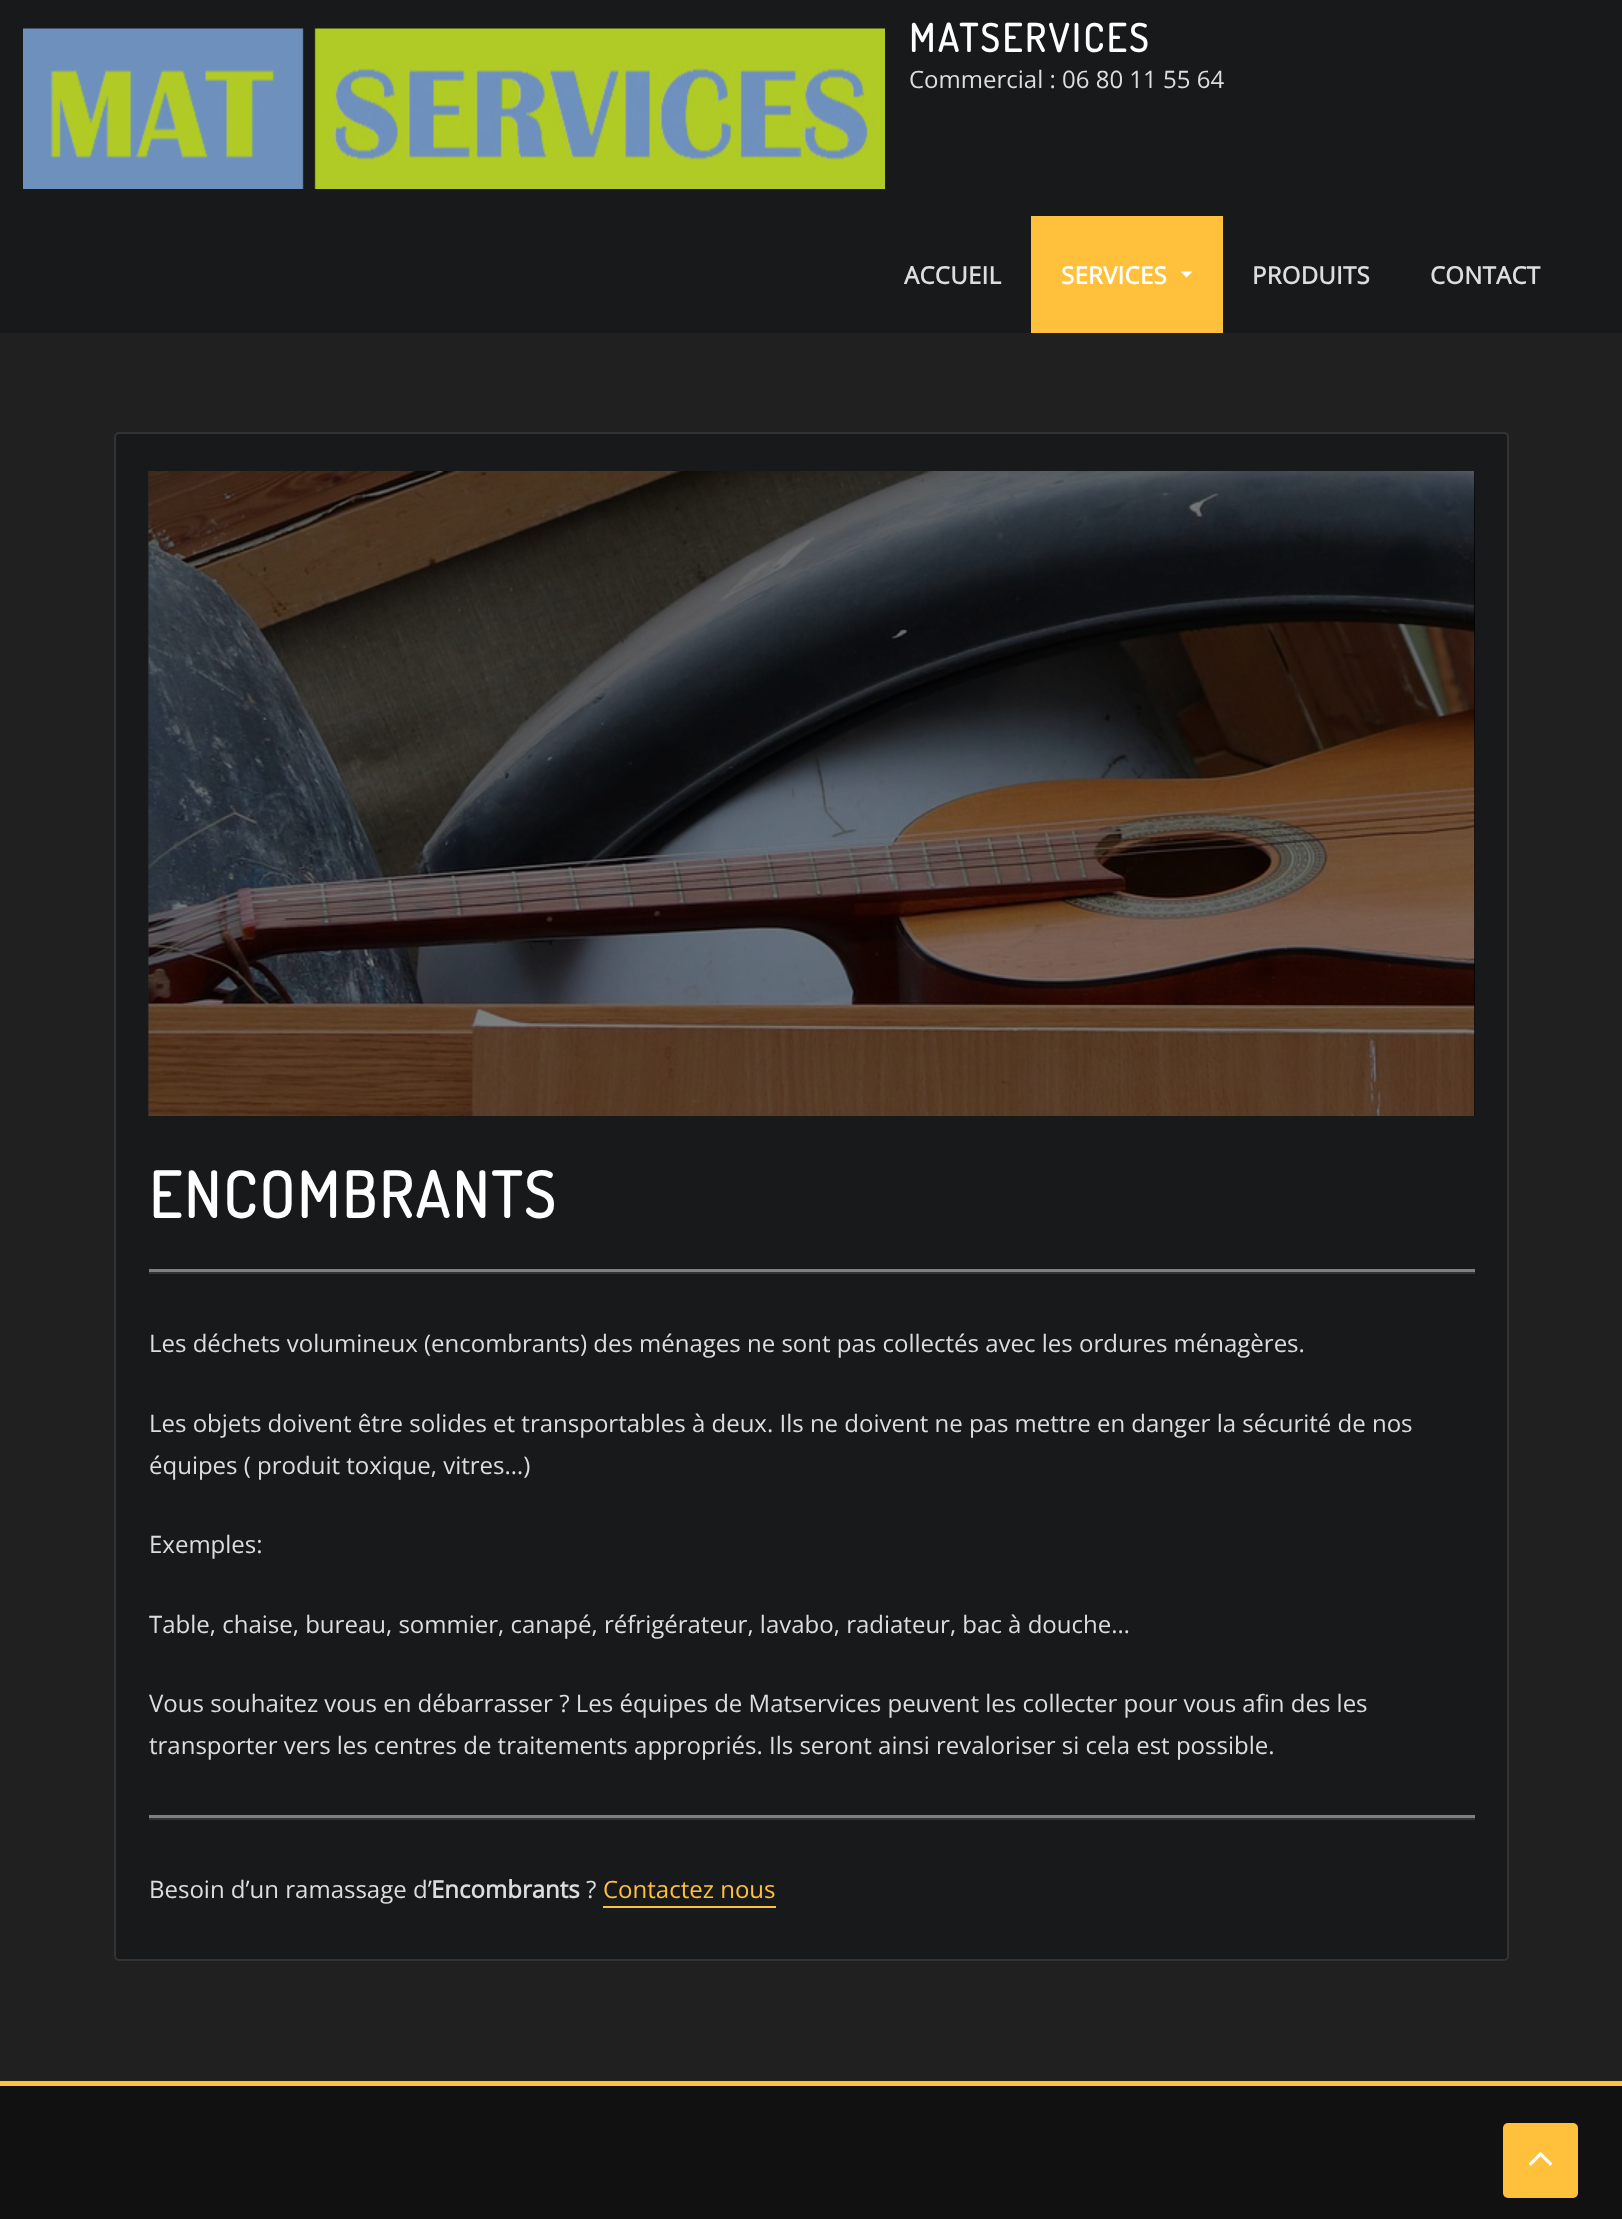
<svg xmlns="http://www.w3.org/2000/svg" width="1622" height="2219">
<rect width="100%" height="100%" fill="#202020"/>
<rect width="1622" height="333" fill="#18191b"/>
<image x="23" y="28" width="862" height="161" href="media/1.png"/>
<text x="909" y="52" style="font-family:Dosis;font-size:38.5px;font-weight:bold;letter-spacing:3px;fill:#fff">MATSERVICES</text>
<text x="909" y="88" style="font-family:Open Sans;font-size:24px;fill:#ddd">Commercial : 06 80 11 55 64</text>
<text x="904" y="284" style="font-family:Open Sans;font-size:24px;font-weight:bold;letter-spacing:0.25px;fill:#ddd">ACCUEIL</text>
<rect x="1031" y="216" width="192" height="117" fill="#ffc13b"/>
<text x="1061" y="284" style="font-family:Open Sans;font-size:24px;font-weight:bold;letter-spacing:0.25px;fill:#fff">SERVICES</text>
<path d="M1180.5 271.5h12l-6 6z" fill="#fff"/>
<text x="1252" y="284" style="font-family:Open Sans;font-size:24px;font-weight:bold;letter-spacing:0.25px;fill:#ddd">PRODUITS</text>
<text x="1430" y="284" style="font-family:Open Sans;font-size:24px;font-weight:bold;letter-spacing:0.25px;fill:#ddd">CONTACT</text>
<rect x="115" y="433" width="1393" height="1527" rx="4" fill="#18191b" stroke="#333" stroke-width="2"/>
<rect x="1474" y="471" width="1" height="645" fill="#000"/>
<image x="148" y="471" width="1327" height="645" href="media/2.png"/>
<text x="149" y="1218" style="font-family:Dosis;font-size:63px;font-weight:bold;letter-spacing:3px;fill:#fff">ENCOMBRANTS</text>
<rect x="149" y="1272" width="1326" height="2" fill="#333"/>
<rect x="149" y="1269" width="1326" height="3" fill="#808080"/>
<text x="149" y="1352" style="font-family:Open Sans;font-size:24px;fill:#ddd">Les déchets volumineux (encombrants) des ménages ne sont pas collectés avec les ordures ménagères.</text>
<text x="149" y="1432" style="font-family:Open Sans;font-size:24px;fill:#ddd">Les objets doivent être solides et transportables à deux. Ils ne doivent ne pas mettre en danger la sécurité de nos</text>
<text x="149" y="1474" style="font-family:Open Sans;font-size:24px;fill:#ddd">équipes ( produit toxique, vitres…)</text>
<text x="149" y="1553" style="font-family:Open Sans;font-size:24px;fill:#ddd">Exemples:</text>
<text x="149" y="1633" style="font-family:Open Sans;font-size:24px;fill:#ddd">Table, chaise, bureau, sommier, canapé, réfrigérateur, lavabo, radiateur, bac à douche…</text>
<text x="149" y="1712" style="font-family:Open Sans;font-size:24px;fill:#ddd">Vous souhaitez vous en débarrasser ? Les équipes de Matservices peuvent les collecter pour vous afin des les</text>
<text x="149" y="1754" style="font-family:Open Sans;font-size:24px;fill:#ddd">transporter vers les centres de traitements appropriés. Ils seront ainsi revaloriser si cela est possible.</text>
<rect x="149" y="1818" width="1326" height="2" fill="#333"/>
<rect x="149" y="1815" width="1326" height="3" fill="#808080"/>
<text x="149" y="1898" style="font-family:Open Sans;font-size:24px;fill:#ddd">Besoin d’un ramassage d’</text>
<text x="431" y="1898" style="font-family:Open Sans;font-size:24px;font-weight:bold;fill:#ddd">Encombrants</text>
<text x="586" y="1898" style="font-family:Open Sans;font-size:24px;fill:#ddd">?</text>
<text x="603" y="1898" style="font-family:Open Sans;font-size:24px;fill:#ffc13b">Contactez nous</text>
<path d="M603 1906v2h173v-33v31z" fill="#ffc13b"/>
<rect y="2086" width="1622" height="133" fill="#111"/>
<rect y="2081" width="1622" height="5" fill="#ffc13b"/>
<rect x="1503" y="2123" width="75" height="75" rx="5" fill="#ffc13b"/>
<image x="1528" y="2152" width="25" height="14" href="media/3.png"/>
</svg>
